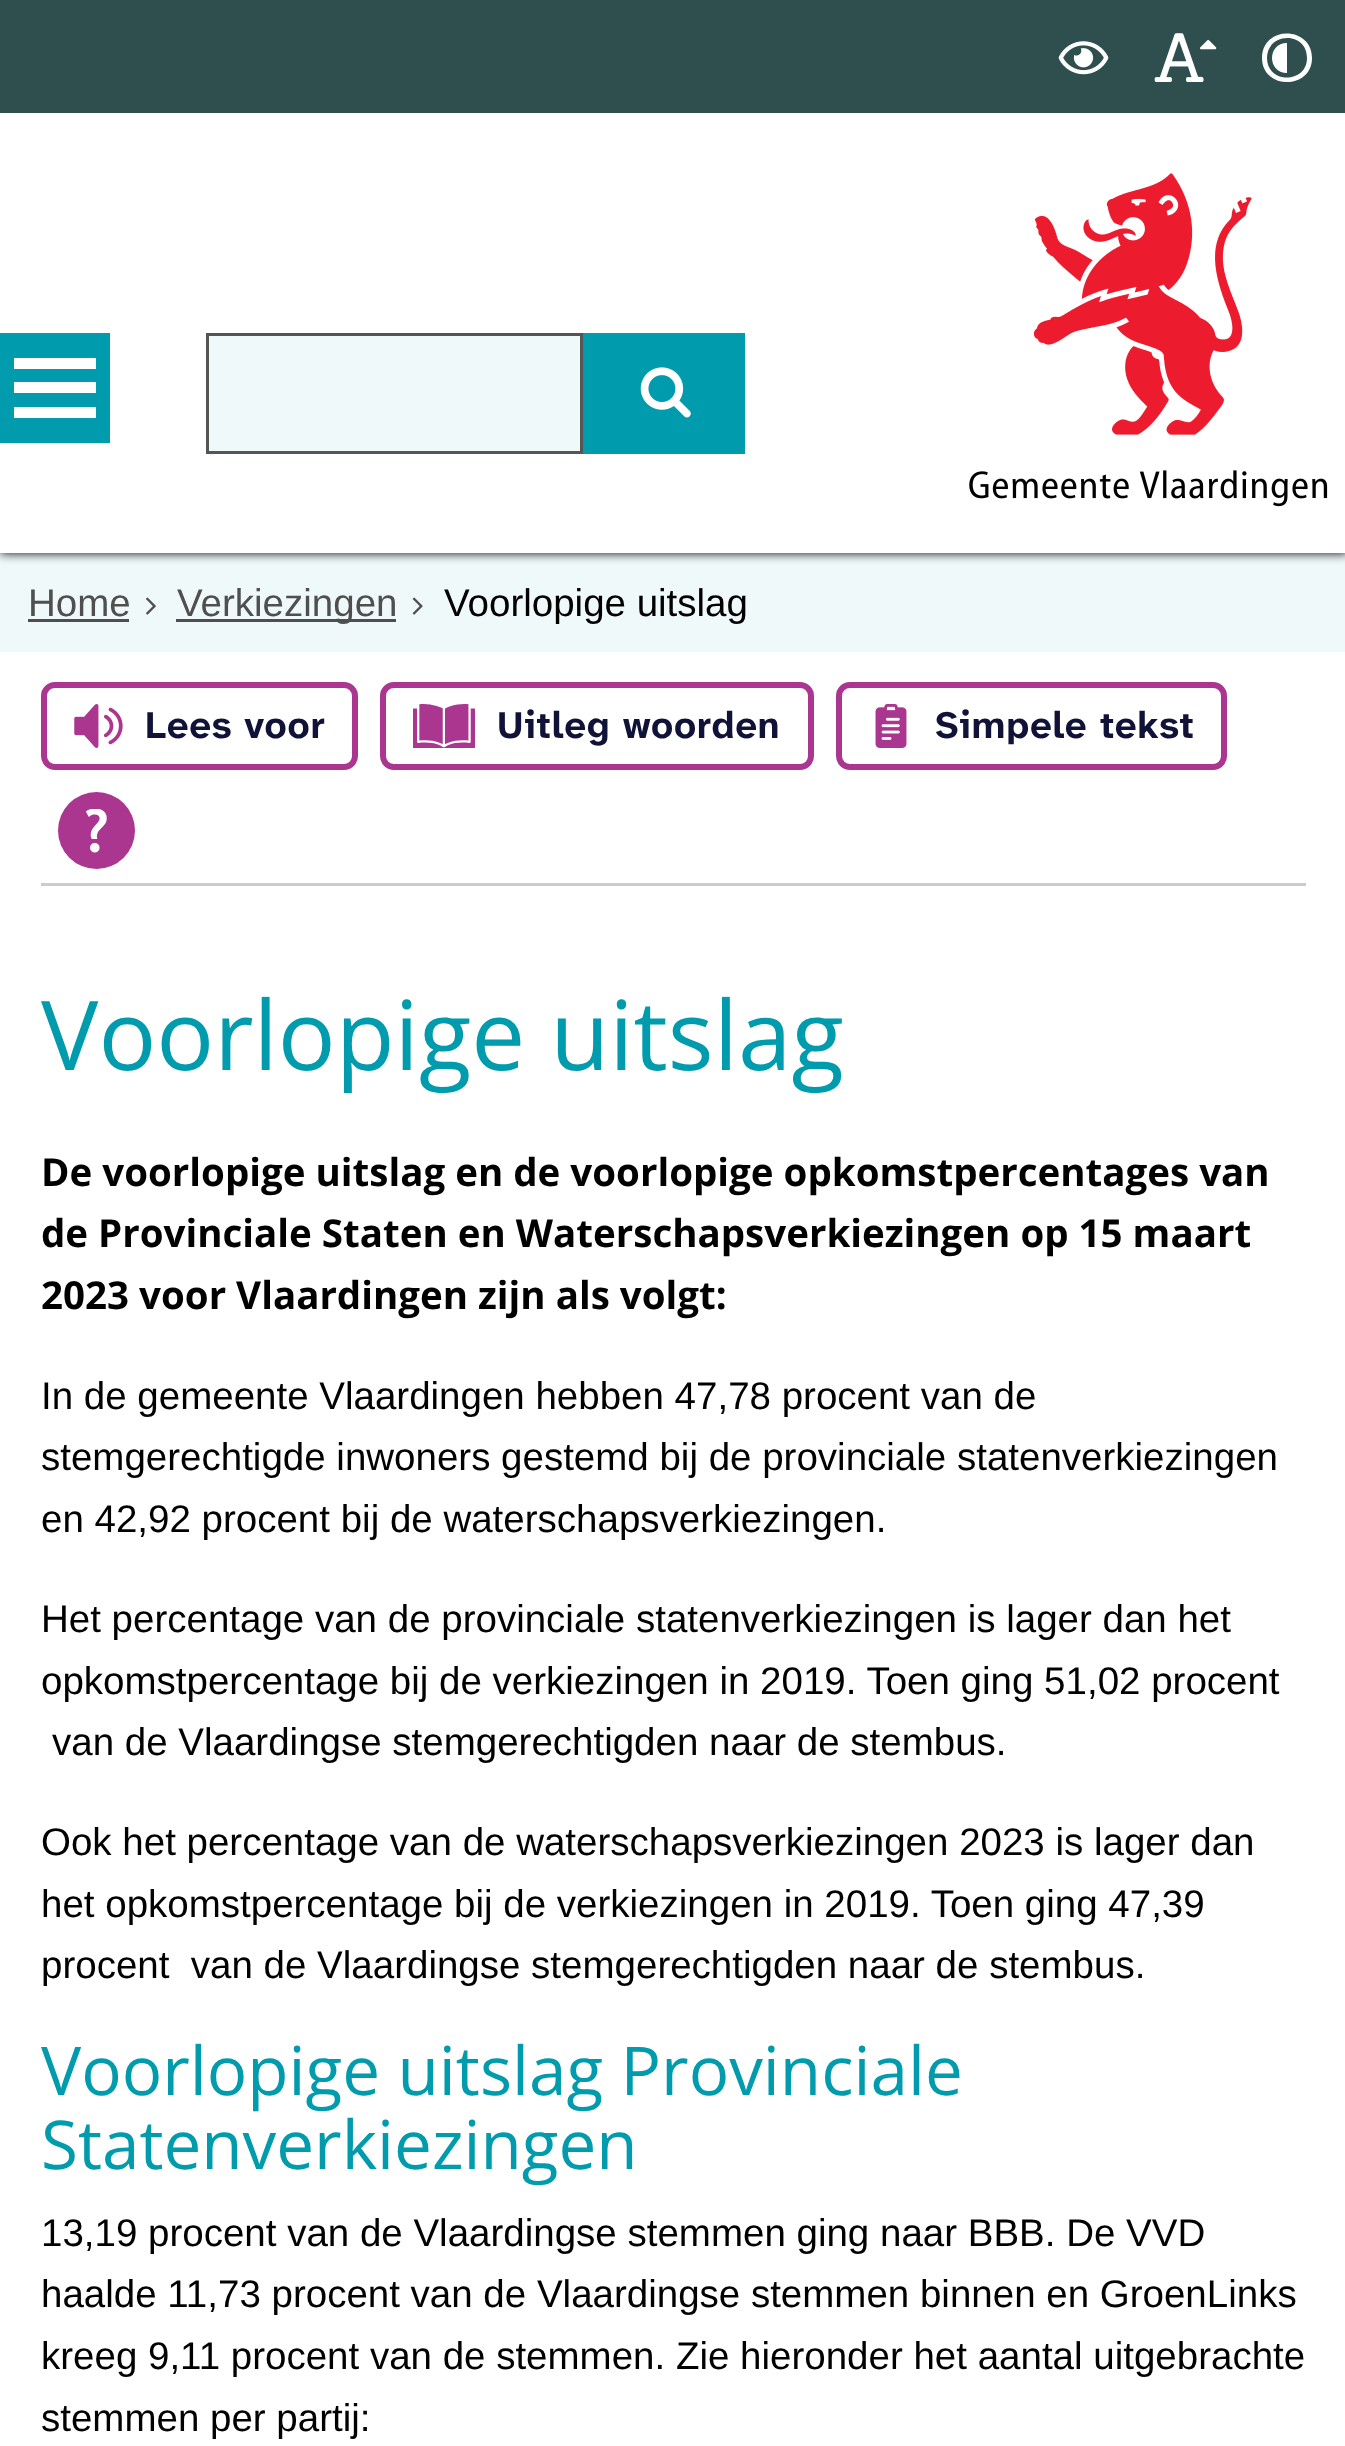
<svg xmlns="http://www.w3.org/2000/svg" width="1345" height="2446">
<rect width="100%" height="100%" fill="#fff"/>
<rect y="553" width="1345" height="99" fill="#eff9fa"/>
<rect width="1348" height="553" fill="#000" filter="blur(5.5px)"/>
<rect y="113" width="1345" height="440" fill="#fff"/>
<rect width="1345" height="113" fill="#2f4f4f"/>
<image x="1058" y="41" width="51" height="34" href="media/1.png"/>
<image x="1154" y="33" width="63" height="49" href="media/2.png"/>
<path d="M1312 58c0 32-50 32-50 0c0-33 50-32 50 0zm-45 0c0 26 40 26 40 0c0-27-40-26-40 0zm20 15c-20 0-20-30 0-30z" fill="#fff"/>
<rect x="207.5" y="334.5" width="374" height="118" fill="#eff9fa" stroke="#555" stroke-width="3"/>
<rect x="583" y="333" width="162" height="121" fill="#009bac"/>
<image x="640" y="367" width="51" height="51" href="media/3.png"/>
<image x="969" y="173" width="359" height="334" href="media/4.png"/>
<rect y="333" width="110" height="110" fill="#009bac"/>
<rect x="14" y="407" width="82" height="11" fill="#fff"/>
<rect x="14" y="382" width="82" height="11" fill="#fff"/>
<rect x="14" y="358" width="82" height="11" fill="#fff"/>
<text x="28" y="616" style="font-family:Liberation Sans;font-size:38.5px;fill:#4f4f4f">Home</text>
<rect x="28" y="619" width="101" height="3" fill="#4f4f4f"/>
<image x="146" y="597" width="10" height="18" href="media/5.png"/>
<rect x="176" y="619" width="220" height="3" fill="#4f4f4f"/>
<text x="177" y="616" style="font-family:Liberation Sans;font-size:38.5px;fill:#4f4f4f">Verkiezingen</text>
<image x="412" y="597" width="11" height="18" href="media/6.png"/>
<text x="444" y="616" style="font-family:Liberation Sans;font-size:38.5px;fill:#000">Voorlopige uitslag</text>
<rect x="41" y="883" width="1265" height="3" fill="#ccc"/>
<rect x="44" y="685" width="311" height="82" rx="11" fill="none" stroke="#ab3690" stroke-width="6"/>
<image x="74" y="704" width="49" height="44" href="media/7.png"/>
<text x="145" y="738" style="font-family:Atkinson Hyperlegible Next;font-size:38.5px;font-weight:bold;letter-spacing:0.75px;fill:#101237">Lees voor</text>
<rect x="383" y="685" width="428" height="82" rx="11" fill="none" stroke="#ab3690" stroke-width="6"/>
<image x="413" y="704" width="63" height="44" href="media/8.png"/>
<text x="497" y="738" style="font-family:Atkinson Hyperlegible Next;font-size:38.5px;font-weight:bold;letter-spacing:0.75px;fill:#101237">Uitleg woorden</text>
<rect x="839" y="685" width="385" height="82" rx="11" fill="none" stroke="#ab3690" stroke-width="6"/>
<image x="875" y="704" width="32" height="44" href="media/9.png"/>
<text x="935" y="738" style="font-family:Atkinson Hyperlegible Next;font-size:38.5px;font-weight:bold;letter-spacing:0.75px;fill:#101237">Simpele tekst</text>
<circle cx="96.5" cy="830.5" r="38.5" fill="#ab3690"/>
<image x="85" y="809" width="22" height="44" href="media/10.png"/>
<text x="41" y="1070" style="font-family:Open Sans;font-size:96.25px;fill:#009bac">Voorlopige uitslag</text>
<text x="41" y="1186" style="font-family:Open Sans;font-size:38.5px;font-weight:bold;fill:#000">De voorlopige uitslag en de voorlopige opkomstpercentages van</text>
<text x="41" y="1247" style="font-family:Open Sans;font-size:38.5px;font-weight:bold;fill:#000">de Provinciale Staten en Waterschapsverkiezingen op 15 maart</text>
<text x="41" y="1309" style="font-family:Open Sans;font-size:38.5px;font-weight:bold;fill:#000">2023 voor Vlaardingen zijn als volgt:</text>
<text x="41" y="1409" style="font-family:Liberation Sans;font-size:38.5px;fill:#000">In de gemeente Vlaardingen hebben 47,78 procent van de</text>
<text x="41" y="1470" style="font-family:Liberation Sans;font-size:38.5px;fill:#000">stemgerechtigde inwoners gestemd bij de provinciale statenverkiezingen</text>
<text x="41" y="1532" style="font-family:Liberation Sans;font-size:38.5px;fill:#000">en 42,92 procent bij de waterschapsverkiezingen.</text>
<text x="41" y="1632" style="font-family:Liberation Sans;font-size:38.5px;fill:#000">Het percentage van de provinciale statenverkiezingen is lager dan het</text>
<text x="41" y="1694" style="font-family:Liberation Sans;font-size:38.5px;fill:#000">opkomstpercentage bij de verkiezingen in 2019. Toen ging 51,02 procent</text>
<text x="52" y="1755" style="font-family:Liberation Sans;font-size:38.5px;fill:#000">van de Vlaardingse stemgerechtigden naar de stembus.</text>
<text x="41" y="1855" style="font-family:Liberation Sans;font-size:38.5px;fill:#000">Ook het percentage van de waterschapsverkiezingen 2023 is lager dan</text>
<text x="41" y="1917" style="font-family:Liberation Sans;font-size:38.5px;fill:#000">het opkomstpercentage bij de verkiezingen in 2019. Toen ging 47,39</text>
<text x="41" y="1978" style="font-family:Liberation Sans;font-size:38.5px;fill:#000" xml:space="preserve">procent  van de Vlaardingse stemgerechtigden naar de stembus.</text>
<text x="41" y="2095" style="font-family:Open Sans;font-size:67.4px;fill:#009bac">Voorlopige uitslag Provinciale</text>
<text x="41" y="2169" style="font-family:Open Sans;font-size:67.4px;fill:#009bac">Statenverkiezingen</text>
<text x="41" y="2246" style="font-family:Liberation Sans;font-size:38.5px;fill:#000">13,19 procent van de Vlaardingse stemmen ging naar BBB. De VVD</text>
<text x="41" y="2307" style="font-family:Liberation Sans;font-size:38.5px;fill:#000">haalde 11,73 procent van de Vlaardingse stemmen binnen en GroenLinks</text>
<text x="41" y="2369" style="font-family:Liberation Sans;font-size:38.5px;fill:#000">kreeg 9,11 procent van de stemmen. Zie hieronder het aantal uitgebrachte</text>
<text x="41" y="2431" style="font-family:Liberation Sans;font-size:38.5px;fill:#000">stemmen per partij:</text>
</svg>
